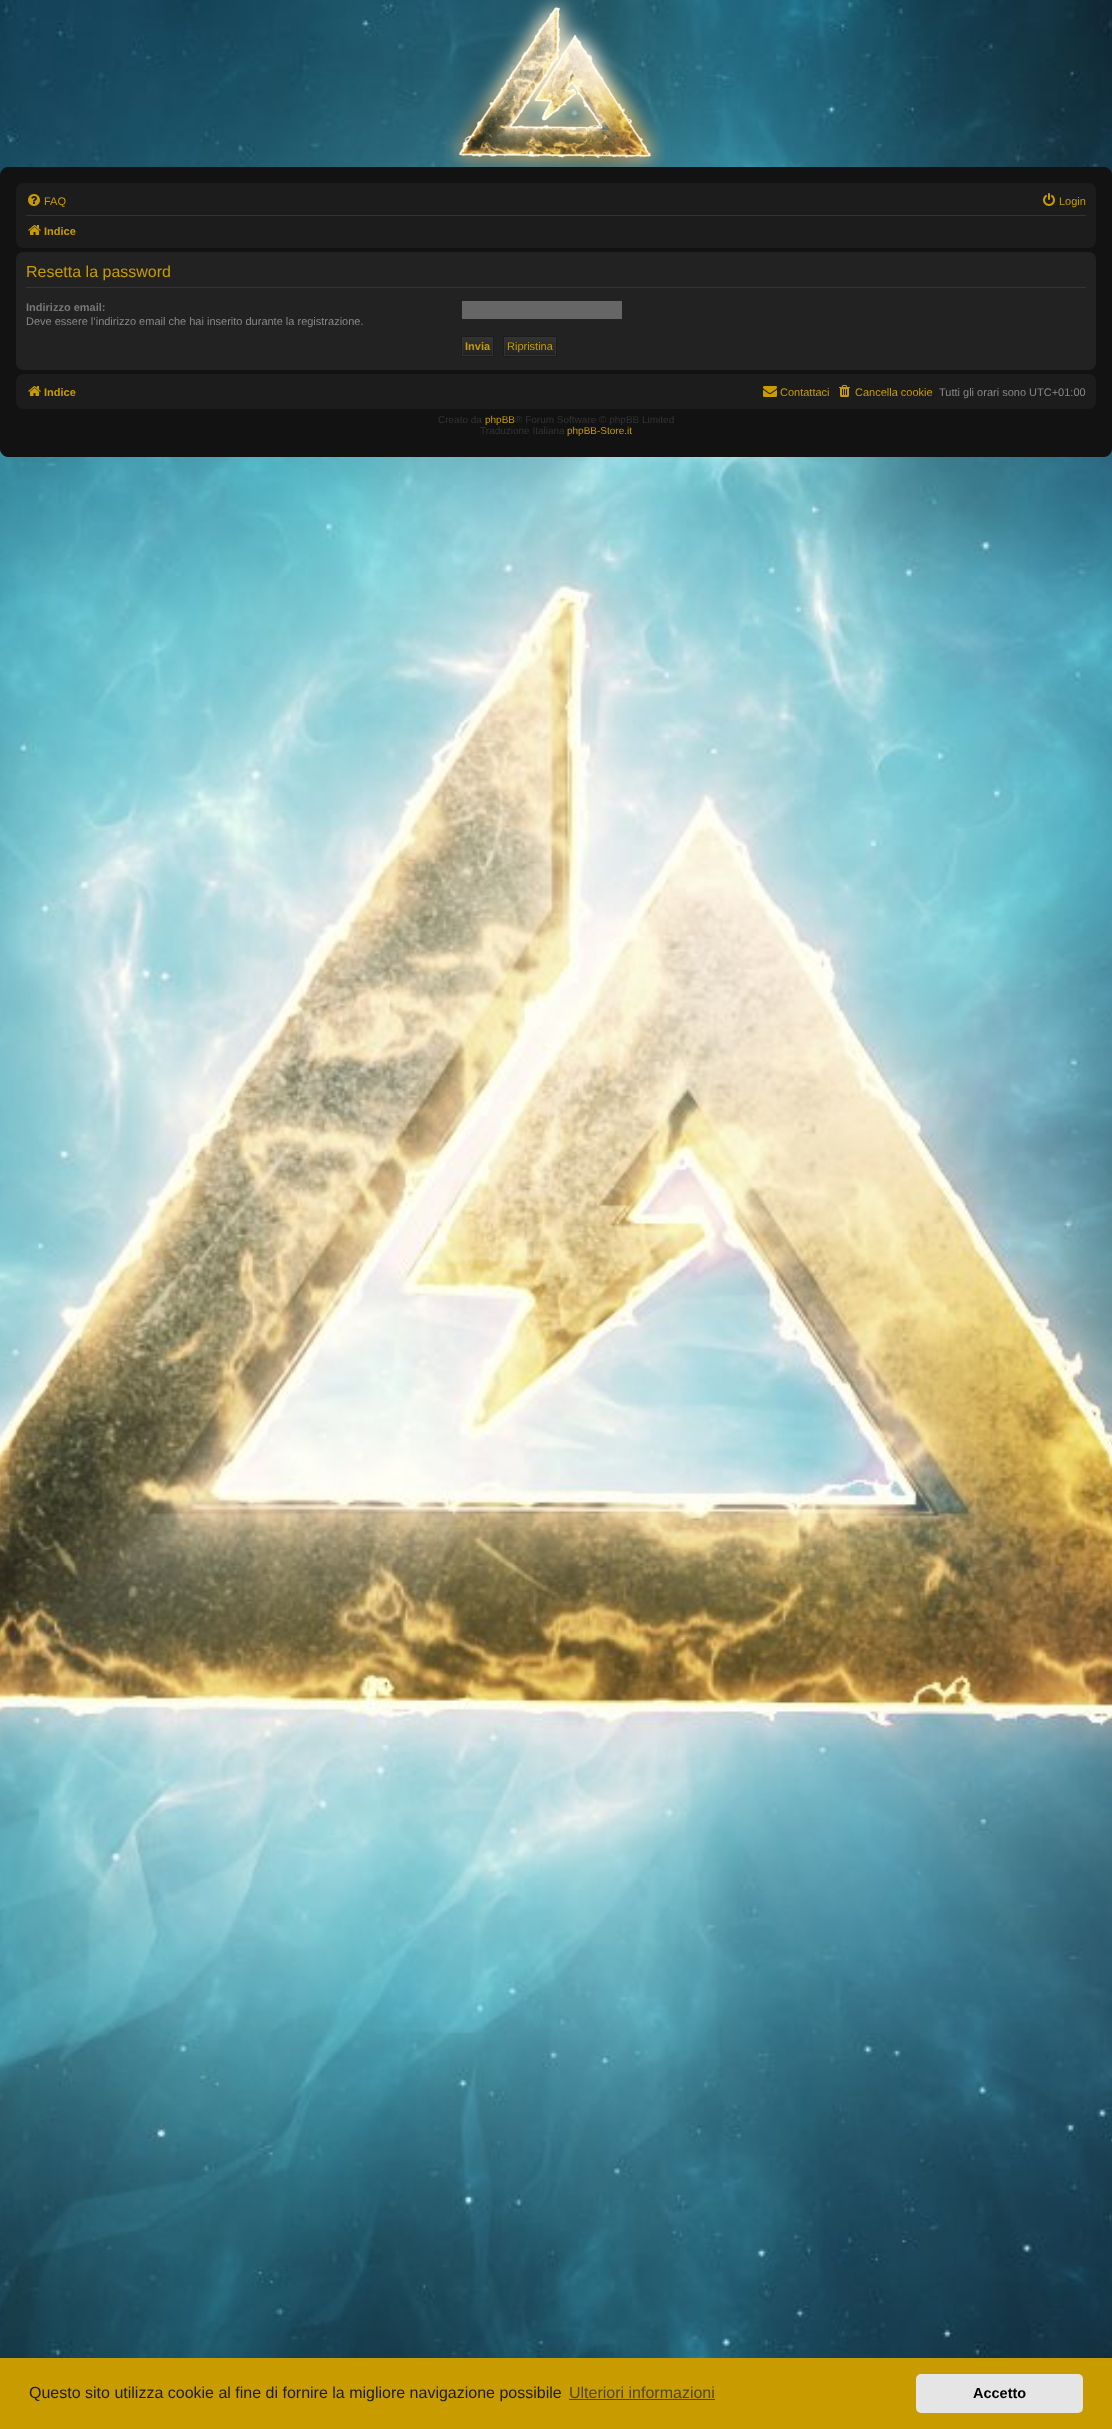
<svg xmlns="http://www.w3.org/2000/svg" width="1112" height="2429">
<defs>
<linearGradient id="g1" gradientUnits="userSpaceOnUse" x1="478" y1="337" x2="478" y2="356"><stop offset="0" stop-color="#333"/><stop offset="1" stop-color="#222"/></linearGradient>
<linearGradient id="g2" gradientUnits="userSpaceOnUse" x1="530" y1="337" x2="530" y2="356"><stop offset="0" stop-color="#333"/><stop offset="1" stop-color="#222"/></linearGradient>
</defs>
<rect width="100%" height="100%" fill="#fff"/>
<image x="0" y="457" width="1112" height="1901" href="media/1.png"/>
<image x="0" y="0" width="1112" height="457" href="media/2.png"/>
<image x="444" y="0" width="221" height="167" href="media/3.png"/>
<image x="444" y="0" width="221" height="167" href="media/4.png"/>
<rect x="0.5" y="167.5" width="1111" height="289" rx="7.5" fill="#121212" stroke="#121212"/>
<rect x="16" y="183" width="1080" height="65" rx="7" fill="#1c1c1c"/>
<image x="28" y="194" width="12" height="12" href="media/5.png"/>
<text x="44" y="205" style="font-family:Liberation Sans;font-size:11px;fill:#c89c00">FAQ</text>
<image x="1043" y="193" width="12" height="13" href="media/6.png"/>
<text x="1059" y="205" style="font-family:Liberation Sans;font-size:11px;fill:#c89c00">Login</text>
<rect x="26" y="215" width="1060" height="1" fill="#333"/>
<image x="28" y="225" width="13" height="10" href="media/7.png"/>
<text x="44" y="235" style="font-family:Liberation Sans;font-size:11px;font-weight:bold;fill:#c89c00">Indice</text>
<rect x="16" y="252" width="1080" height="118" rx="7" fill="#222"/>
<rect x="26" y="287" width="1060" height="1" fill="#333"/>
<text x="26" y="277" style="font-family:Liberation Sans;font-size:16px;fill:#c89c00">Resetta la password</text>
<text x="26" y="311" style="font-family:Liberation Sans;font-size:11px;font-weight:bold;fill:#777">Indirizzo email:</text>
<text x="26" y="325" style="font-family:Liberation Sans;font-size:11px;fill:#888">Deve essere l’indirizzo email che hai inserito durante la registrazione.</text>
<rect x="462" y="301" width="160" height="18" fill="#666"/>
<rect x="463" y="338" width="29" height="15" fill="url(#g1)"/>
<rect x="462.5" y="337.5" width="30" height="18" fill="none" stroke="#333"/>
<rect x="461.5" y="336.5" width="32" height="20" fill="none" stroke="#1c1c1c"/>
<text x="465" y="350" style="font-family:Liberation Sans;font-size:11px;font-weight:bold;fill:#c89c00">Invia</text>
<rect x="505" y="338" width="50" height="15" fill="url(#g2)"/>
<rect x="504.5" y="337.5" width="51" height="18" fill="none" stroke="#333"/>
<rect x="503.5" y="336.5" width="53" height="20" fill="none" stroke="#1c1c1c"/>
<text x="507" y="350" style="font-family:Liberation Sans;font-size:11px;fill:#c89c00">Ripristina</text>
<rect x="16" y="374" width="1080" height="35" rx="7" fill="#1c1c1c"/>
<image x="28" y="386" width="13" height="10" href="media/7.png"/>
<text x="44" y="396" style="font-family:Liberation Sans;font-size:11px;font-weight:bold;fill:#c89c00">Indice</text>
<image x="763" y="386" width="14" height="11" href="media/8.png"/>
<text x="780" y="396" style="font-family:Liberation Sans;font-size:11px;fill:#c89c00">Contattaci</text>
<image x="839" y="385" width="11" height="12" href="media/9.png"/>
<text x="855" y="396" style="font-family:Liberation Sans;font-size:11px;fill:#c89c00">Cancella cookie</text>
<text x="939" y="396" style="font-family:Liberation Sans;font-size:11px;fill:#888">Tutti gli orari sono UTC+01:00</text>
<text x="438" y="423" style="font-family:Liberation Sans;font-size:10px;fill:#333">Creato da</text>
<text x="485" y="423" style="font-family:Liberation Sans;font-size:10px;fill:#c89c00">phpBB</text>
<text x="515" y="423" style="font-family:Liberation Sans;font-size:10px;fill:#333">® Forum Software © phpBB Limited</text>
<text x="480" y="434" style="font-family:Liberation Sans;font-size:10px;fill:#333">Traduzione Italiana</text>
<text x="567" y="434" style="font-family:Liberation Sans;font-size:10px;fill:#c89c00">phpBB-Store.it</text>
<rect y="2358" width="1112" height="71" fill="#c89c00"/>
<text x="29" y="2398" style="font-family:Liberation Sans;font-size:16px;fill:#1c1c1c">Questo sito utilizza cookie al fine di fornire la migliore navigazione possibile</text>
<text x="569" y="2398" style="font-family:Liberation Sans;font-size:16px;fill:#514829">Ulteriori informazioni</text>
<rect x="569" y="2399" width="146" height="1" fill="#514829"/>
<rect x="916" y="2374" width="167" height="39" rx="5" fill="#e5e5e5"/>
<text x="973" y="2398" style="font-family:Liberation Sans;font-size:14.5px;font-weight:bold;fill:#000">Accetto</text>
</svg>
